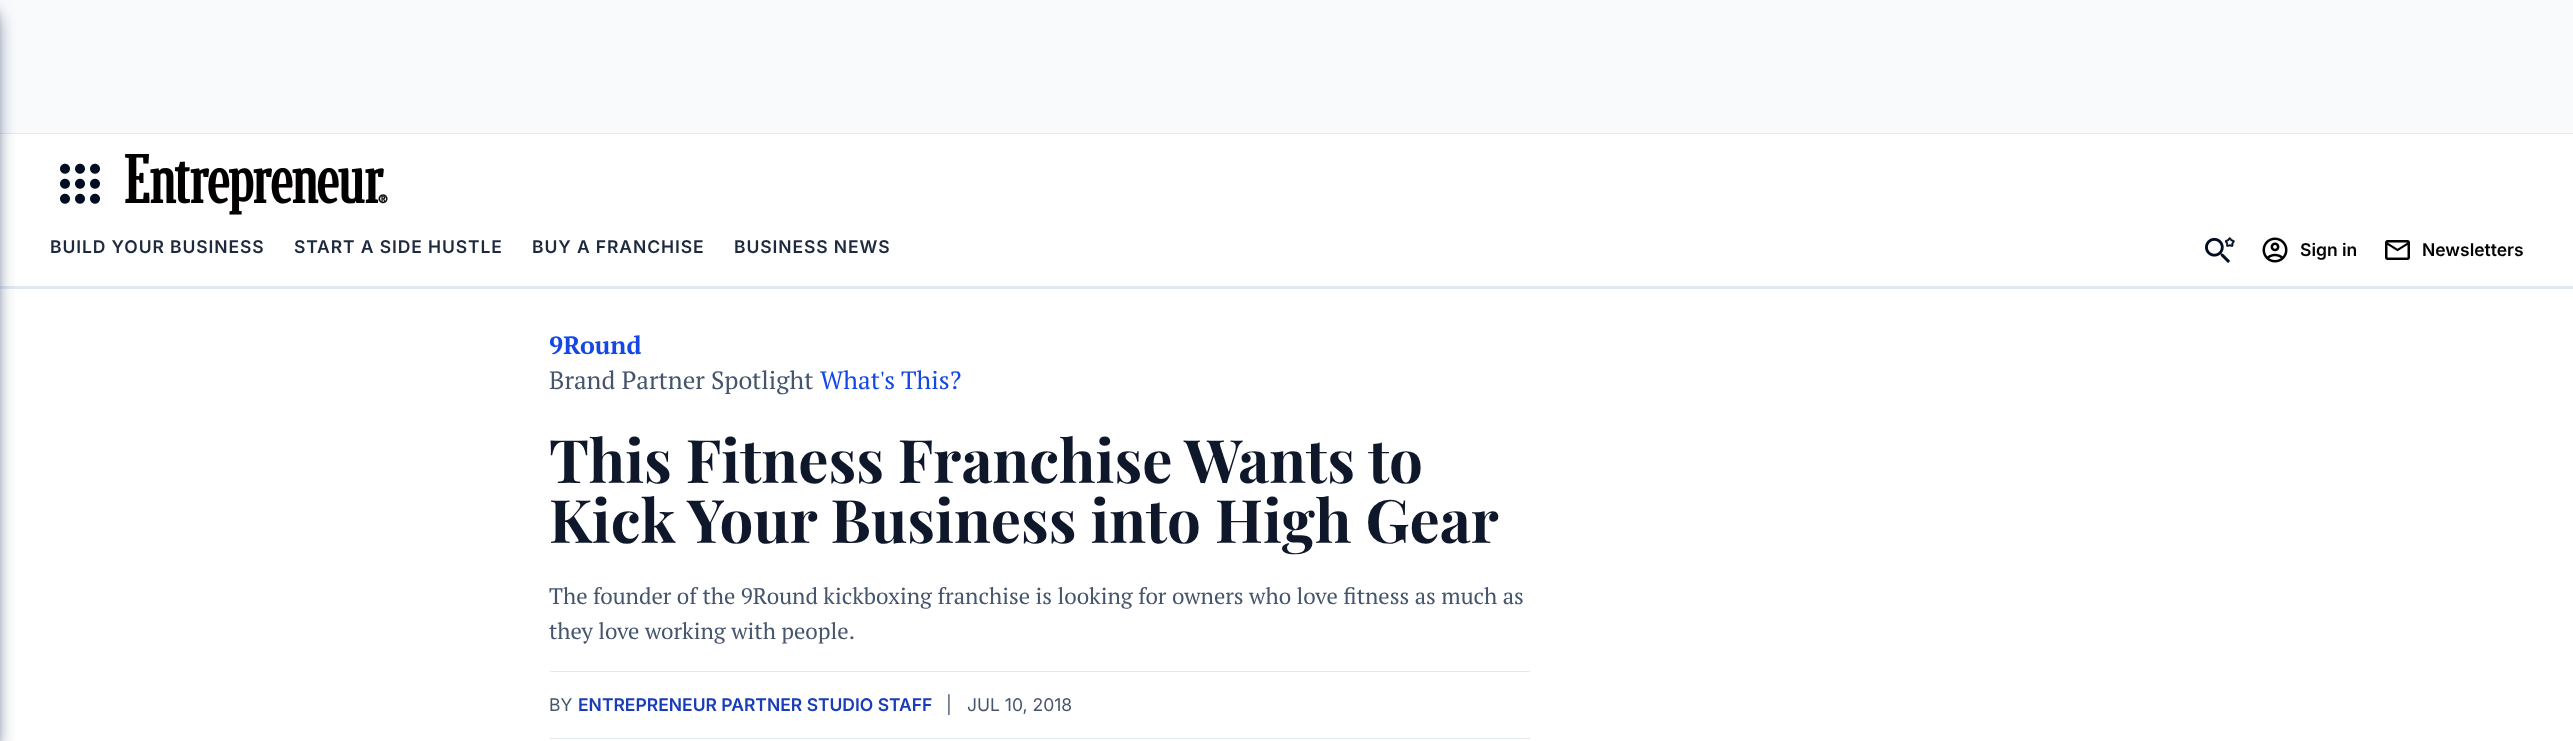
<svg xmlns="http://www.w3.org/2000/svg" width="2573" height="741">
<rect width="100%" height="100%" fill="#fff"/>
<rect width="2573" height="133" fill="#f8fafc"/>
<rect y="133" width="2573" height="1" fill="#e2e8f0"/>
<rect y="286" width="2573" height="3" fill="#e2e8f0"/>
<rect x="-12" y="10" width="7" height="731" fill="#62748e" filter="blur(4px)"/>
<rect x="-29" y="16" width="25" height="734" fill="#62748e" filter="blur(9.5px)"/>
<image x="60" y="163" width="40" height="41" href="media/1.png"/>
<image x="125" y="154" width="263" height="61" href="media/2.png"/>
<text x="50" y="253" style="font-family:Inter;font-size:17.5px;font-weight:600;letter-spacing:0.9px;fill:#1d293d">BUILD YOUR BUSINESS</text>
<text x="294" y="253" style="font-family:Inter;font-size:17.5px;font-weight:600;letter-spacing:0.9px;fill:#1d293d">START A SIDE HUSTLE</text>
<text x="532" y="253" style="font-family:Inter;font-size:17.5px;font-weight:600;letter-spacing:0.9px;fill:#1d293d">BUY A FRANCHISE</text>
<text x="734" y="253" style="font-family:Inter;font-size:17.5px;font-weight:600;letter-spacing:0.9px;fill:#1d293d">BUSINESS NEWS</text>
<image x="2205" y="237" width="30" height="26" href="media/3.png"/>
<image x="2262" y="237" width="26" height="26" href="media/4.png"/>
<text x="2300" y="256" style="font-family:Inter;font-size:17.5px;font-weight:600;fill:#000">Sign in</text>
<image x="2385" y="240" width="25" height="20" href="media/5.png"/>
<text x="2422" y="256" style="font-family:Inter;font-size:17.5px;font-weight:600;fill:#000">Newsletters</text>
<text x="549" y="354" style="font-family:PT Serif;font-size:25px;font-weight:bold;fill:#1447e6">9Round</text>
<text x="549" y="389" style="font-family:PT Serif;font-size:25px;fill:#45556c">Brand Partner Spotlight</text>
<text x="820" y="389" style="font-family:PT Serif;font-size:25px;fill:#1447e6">What's This?</text>
<text x="549" y="483" style="font-family:Playfair Display;font-size:60px;font-weight:bold;fill:#0f172b">This Fitness Franchise Wants to</text>
<text x="549" y="543" style="font-family:Playfair Display;font-size:60px;font-weight:bold;fill:#0f172b">Kick Your Business into High Gear</text>
<text x="549" y="604" style="font-family:PT Serif;font-size:22.5px;fill:#45556c">The founder of the 9Round kickboxing franchise is looking for owners who love fitness as much as</text>
<text x="549" y="639" style="font-family:PT Serif;font-size:22.5px;fill:#45556c">they love working with people.</text>
<rect x="550" y="671" width="980" height="1" fill="#e2e8f0"/>
<rect x="550" y="738" width="980" height="1" fill="#e2e8f0"/>
<text x="549" y="711" style="font-family:Inter;font-size:17.5px;fill:#45556c">BY</text>
<text x="578" y="711" style="font-family:Inter;font-size:17.5px;font-weight:600;fill:#193cb8">ENTREPRENEUR PARTNER STUDIO STAFF</text>
<text x="946" y="711" style="font-family:Inter;font-size:17.5px;fill:#45556c">|</text>
<text x="967" y="711" style="font-family:Inter;font-size:17.5px;fill:#45556c">JUL 10, 2018</text>
</svg>
